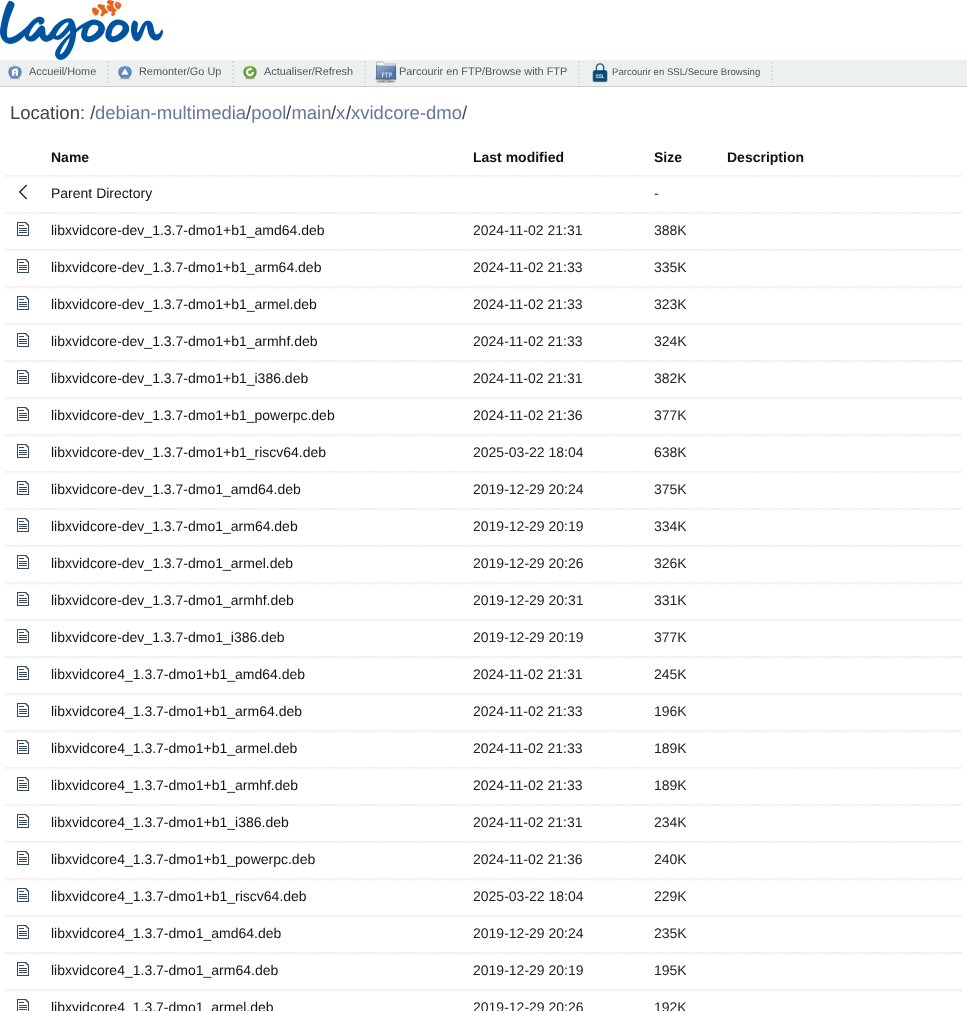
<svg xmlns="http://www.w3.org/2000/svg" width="967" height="1011">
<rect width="100%" height="100%" fill="#fff"/>
<image x="0" y="0" width="163" height="60" href="media/1.png"/>
<rect y="60" width="967" height="26" fill="#ecf1ef"/>
<rect y="86" width="967" height="1" fill="#ccc"/>
<image x="8" y="65" width="14" height="15" href="media/2.png"/>
<text x="29" y="75" style="font-family:Liberation Sans;font-size:10.9px;fill:#555">Accueil/Home</text>
<path d="M108 61v23" fill="none" stroke="#d5e0e0" stroke-width="2" stroke-dasharray="2 2"/>
<image x="118" y="65" width="14" height="15" href="media/3.png"/>
<text x="139" y="75" style="font-family:Liberation Sans;font-size:10.9px;fill:#555">Remonter/Go Up</text>
<path d="M233 61v23" fill="none" stroke="#d5e0e0" stroke-width="2" stroke-dasharray="2 2"/>
<image x="243" y="65" width="14" height="15" href="media/4.png"/>
<text x="264" y="75" style="font-family:Liberation Sans;font-size:10.9px;fill:#555">Actualiser/Refresh</text>
<path d="M365 61v23" fill="none" stroke="#d5e0e0" stroke-width="2" stroke-dasharray="2 2"/>
<image x="374" y="61" width="23" height="22" href="media/5.png"/>
<text x="399" y="75" style="font-family:Liberation Sans;font-size:10.9px;fill:#555">Parcourir en FTP/Browse with FTP</text>
<path d="M579 61v23" fill="none" stroke="#d5e0e0" stroke-width="2" stroke-dasharray="2 2"/>
<image x="592" y="62" width="16" height="21" href="media/6.png"/>
<text x="612" y="75" style="font-family:Liberation Sans;font-size:9.6px;fill:#555">Parcourir en SSL/Secure Browsing</text>
<path d="M772 62v21" fill="none" stroke="#d5e0e0" stroke-width="2" stroke-dasharray="2 2"/>
<text x="10" y="119" style="font-family:Liberation Sans;font-size:18.5px;fill:#444">Location: /</text>
<text x="95" y="119" style="font-family:Liberation Sans;font-size:18.5px;fill:#679">debian-multimedia pool main</text>
<text x="246" y="119" style="font-family:Liberation Sans;font-size:18.5px;fill:#444">/</text>
<text x="286" y="119" style="font-family:Liberation Sans;font-size:18.5px;fill:#444">/</text>
<text x="331" y="119" style="font-family:Liberation Sans;font-size:18.5px;fill:#444">/</text>
<text x="336" y="119" style="font-family:Liberation Sans;font-size:18.5px;fill:#679">x</text>
<text x="346" y="119" style="font-family:Liberation Sans;font-size:18.5px;fill:#444">/</text>
<text x="351" y="119" style="font-family:Liberation Sans;font-size:18.5px;fill:#679">xvidcore-dmo</text>
<text x="462" y="119" style="font-family:Liberation Sans;font-size:18.5px;fill:#444">/</text>
<text x="51" y="162" style="font-family:Liberation Sans;font-size:14px;font-weight:bold;fill:#111">Name</text>
<text x="473" y="162" style="font-family:Liberation Sans;font-size:14px;font-weight:bold;fill:#111">Last modified</text>
<text x="654" y="162" style="font-family:Liberation Sans;font-size:14px;font-weight:bold;fill:#111">Size</text>
<text x="727" y="162" style="font-family:Liberation Sans;font-size:14px;font-weight:bold;fill:#111">Description</text>
<image x="5" y="175" width="36" height="3" href="media/7.png"/>
<image x="19" y="184" width="8" height="16" href="media/8.png"/>
<image x="463" y="175" width="181" height="3" href="media/9.png"/>
<image x="717" y="175" width="245" height="3" href="media/10.png"/>
<image x="41" y="175" width="422" height="3" href="media/11.png"/>
<text x="51" y="198" style="font-family:Liberation Sans;font-size:14px;fill:#111">Parent Directory</text>
<image x="644" y="175" width="73" height="3" href="media/12.png"/>
<text x="654" y="198" style="font-family:Liberation Sans;font-size:14px;fill:#222">-</text>
<image x="5" y="212" width="36" height="3" href="media/7.png"/>
<image x="17" y="222" width="12" height="14" href="media/13.png"/>
<image x="717" y="212" width="245" height="3" href="media/10.png"/>
<image x="41" y="212" width="422" height="3" href="media/11.png"/>
<text x="51" y="235" style="font-family:Liberation Sans;font-size:14px;fill:#111">libxvidcore-dev_1.3.7-dmo1+b1_amd64.deb</text>
<image x="463" y="212" width="181" height="3" href="media/9.png"/>
<text x="473" y="235" style="font-family:Liberation Sans;font-size:14px;fill:#222">2024-11-02 21:31</text>
<image x="644" y="212" width="73" height="3" href="media/12.png"/>
<text x="654" y="235" style="font-family:Liberation Sans;font-size:14px;fill:#222">388K</text>
<image x="5" y="249" width="36" height="3" href="media/7.png"/>
<image x="17" y="259" width="12" height="14" href="media/13.png"/>
<image x="717" y="249" width="245" height="3" href="media/10.png"/>
<image x="41" y="249" width="422" height="3" href="media/11.png"/>
<text x="51" y="272" style="font-family:Liberation Sans;font-size:14px;fill:#111">libxvidcore-dev_1.3.7-dmo1+b1_arm64.deb</text>
<image x="463" y="249" width="181" height="3" href="media/9.png"/>
<text x="473" y="272" style="font-family:Liberation Sans;font-size:14px;fill:#222">2024-11-02 21:33</text>
<image x="644" y="249" width="73" height="3" href="media/12.png"/>
<text x="654" y="272" style="font-family:Liberation Sans;font-size:14px;fill:#222">335K</text>
<image x="5" y="286" width="36" height="3" href="media/7.png"/>
<image x="17" y="296" width="12" height="14" href="media/13.png"/>
<image x="717" y="286" width="245" height="3" href="media/10.png"/>
<image x="41" y="286" width="422" height="3" href="media/11.png"/>
<text x="51" y="309" style="font-family:Liberation Sans;font-size:14px;fill:#111">libxvidcore-dev_1.3.7-dmo1+b1_armel.deb</text>
<image x="463" y="286" width="181" height="3" href="media/9.png"/>
<text x="473" y="309" style="font-family:Liberation Sans;font-size:14px;fill:#222">2024-11-02 21:33</text>
<image x="644" y="286" width="73" height="3" href="media/12.png"/>
<text x="654" y="309" style="font-family:Liberation Sans;font-size:14px;fill:#222">323K</text>
<image x="5" y="323" width="36" height="3" href="media/7.png"/>
<image x="17" y="333" width="12" height="14" href="media/13.png"/>
<image x="717" y="323" width="245" height="3" href="media/10.png"/>
<image x="41" y="323" width="422" height="3" href="media/11.png"/>
<text x="51" y="346" style="font-family:Liberation Sans;font-size:14px;fill:#111">libxvidcore-dev_1.3.7-dmo1+b1_armhf.deb</text>
<image x="463" y="323" width="181" height="3" href="media/9.png"/>
<text x="473" y="346" style="font-family:Liberation Sans;font-size:14px;fill:#222">2024-11-02 21:33</text>
<image x="644" y="323" width="73" height="3" href="media/12.png"/>
<text x="654" y="346" style="font-family:Liberation Sans;font-size:14px;fill:#222">324K</text>
<image x="5" y="360" width="36" height="3" href="media/7.png"/>
<image x="17" y="370" width="12" height="14" href="media/13.png"/>
<image x="717" y="360" width="245" height="3" href="media/10.png"/>
<image x="41" y="360" width="422" height="3" href="media/11.png"/>
<text x="51" y="383" style="font-family:Liberation Sans;font-size:14px;fill:#111">libxvidcore-dev_1.3.7-dmo1+b1_i386.deb</text>
<image x="463" y="360" width="181" height="3" href="media/9.png"/>
<text x="473" y="383" style="font-family:Liberation Sans;font-size:14px;fill:#222">2024-11-02 21:31</text>
<image x="644" y="360" width="73" height="3" href="media/12.png"/>
<text x="654" y="383" style="font-family:Liberation Sans;font-size:14px;fill:#222">382K</text>
<image x="5" y="397" width="36" height="3" href="media/7.png"/>
<image x="17" y="407" width="12" height="14" href="media/13.png"/>
<image x="717" y="397" width="245" height="3" href="media/10.png"/>
<image x="41" y="397" width="422" height="3" href="media/11.png"/>
<text x="51" y="420" style="font-family:Liberation Sans;font-size:14px;fill:#111">libxvidcore-dev_1.3.7-dmo1+b1_powerpc.deb</text>
<image x="463" y="397" width="181" height="3" href="media/9.png"/>
<text x="473" y="420" style="font-family:Liberation Sans;font-size:14px;fill:#222">2024-11-02 21:36</text>
<image x="644" y="397" width="73" height="3" href="media/12.png"/>
<text x="654" y="420" style="font-family:Liberation Sans;font-size:14px;fill:#222">377K</text>
<image x="5" y="434" width="36" height="3" href="media/7.png"/>
<image x="17" y="444" width="12" height="14" href="media/13.png"/>
<image x="717" y="434" width="245" height="3" href="media/10.png"/>
<image x="41" y="434" width="422" height="3" href="media/11.png"/>
<text x="51" y="457" style="font-family:Liberation Sans;font-size:14px;fill:#111">libxvidcore-dev_1.3.7-dmo1+b1_riscv64.deb</text>
<image x="463" y="434" width="181" height="3" href="media/9.png"/>
<text x="473" y="457" style="font-family:Liberation Sans;font-size:14px;fill:#222">2025-03-22 18:04</text>
<image x="644" y="434" width="73" height="3" href="media/12.png"/>
<text x="654" y="457" style="font-family:Liberation Sans;font-size:14px;fill:#222">638K</text>
<image x="5" y="471" width="36" height="3" href="media/7.png"/>
<image x="17" y="481" width="12" height="14" href="media/13.png"/>
<image x="717" y="471" width="245" height="3" href="media/10.png"/>
<image x="41" y="471" width="422" height="3" href="media/11.png"/>
<text x="51" y="494" style="font-family:Liberation Sans;font-size:14px;fill:#111">libxvidcore-dev_1.3.7-dmo1_amd64.deb</text>
<image x="463" y="471" width="181" height="3" href="media/9.png"/>
<text x="473" y="494" style="font-family:Liberation Sans;font-size:14px;fill:#222">2019-12-29 20:24</text>
<image x="644" y="471" width="73" height="3" href="media/12.png"/>
<text x="654" y="494" style="font-family:Liberation Sans;font-size:14px;fill:#222">375K</text>
<image x="5" y="508" width="36" height="3" href="media/7.png"/>
<image x="17" y="518" width="12" height="14" href="media/13.png"/>
<image x="717" y="508" width="245" height="3" href="media/10.png"/>
<image x="41" y="508" width="422" height="3" href="media/11.png"/>
<text x="51" y="531" style="font-family:Liberation Sans;font-size:14px;fill:#111">libxvidcore-dev_1.3.7-dmo1_arm64.deb</text>
<image x="463" y="508" width="181" height="3" href="media/9.png"/>
<text x="473" y="531" style="font-family:Liberation Sans;font-size:14px;fill:#222">2019-12-29 20:19</text>
<image x="644" y="508" width="73" height="3" href="media/12.png"/>
<text x="654" y="531" style="font-family:Liberation Sans;font-size:14px;fill:#222">334K</text>
<image x="5" y="545" width="36" height="3" href="media/7.png"/>
<image x="17" y="555" width="12" height="14" href="media/13.png"/>
<image x="717" y="545" width="245" height="3" href="media/10.png"/>
<image x="41" y="545" width="422" height="3" href="media/11.png"/>
<text x="51" y="568" style="font-family:Liberation Sans;font-size:14px;fill:#111">libxvidcore-dev_1.3.7-dmo1_armel.deb</text>
<image x="463" y="545" width="181" height="3" href="media/9.png"/>
<text x="473" y="568" style="font-family:Liberation Sans;font-size:14px;fill:#222">2019-12-29 20:26</text>
<image x="644" y="545" width="73" height="3" href="media/12.png"/>
<text x="654" y="568" style="font-family:Liberation Sans;font-size:14px;fill:#222">326K</text>
<image x="5" y="582" width="36" height="3" href="media/7.png"/>
<image x="17" y="592" width="12" height="14" href="media/13.png"/>
<image x="717" y="582" width="245" height="3" href="media/10.png"/>
<image x="41" y="582" width="422" height="3" href="media/11.png"/>
<text x="51" y="605" style="font-family:Liberation Sans;font-size:14px;fill:#111">libxvidcore-dev_1.3.7-dmo1_armhf.deb</text>
<image x="463" y="582" width="181" height="3" href="media/9.png"/>
<text x="473" y="605" style="font-family:Liberation Sans;font-size:14px;fill:#222">2019-12-29 20:31</text>
<image x="644" y="582" width="73" height="3" href="media/12.png"/>
<text x="654" y="605" style="font-family:Liberation Sans;font-size:14px;fill:#222">331K</text>
<image x="5" y="619" width="36" height="3" href="media/7.png"/>
<image x="17" y="629" width="12" height="14" href="media/13.png"/>
<image x="717" y="619" width="245" height="3" href="media/10.png"/>
<image x="41" y="619" width="422" height="3" href="media/11.png"/>
<text x="51" y="642" style="font-family:Liberation Sans;font-size:14px;fill:#111">libxvidcore-dev_1.3.7-dmo1_i386.deb</text>
<image x="463" y="619" width="181" height="3" href="media/9.png"/>
<text x="473" y="642" style="font-family:Liberation Sans;font-size:14px;fill:#222">2019-12-29 20:19</text>
<image x="644" y="619" width="73" height="3" href="media/12.png"/>
<text x="654" y="642" style="font-family:Liberation Sans;font-size:14px;fill:#222">377K</text>
<image x="5" y="656" width="36" height="3" href="media/7.png"/>
<image x="17" y="666" width="12" height="14" href="media/13.png"/>
<image x="717" y="656" width="245" height="3" href="media/10.png"/>
<image x="41" y="656" width="422" height="3" href="media/11.png"/>
<text x="51" y="679" style="font-family:Liberation Sans;font-size:14px;fill:#111">libxvidcore4_1.3.7-dmo1+b1_amd64.deb</text>
<image x="463" y="656" width="181" height="3" href="media/9.png"/>
<text x="473" y="679" style="font-family:Liberation Sans;font-size:14px;fill:#222">2024-11-02 21:31</text>
<image x="644" y="656" width="73" height="3" href="media/12.png"/>
<text x="654" y="679" style="font-family:Liberation Sans;font-size:14px;fill:#222">245K</text>
<image x="5" y="693" width="36" height="3" href="media/7.png"/>
<image x="17" y="703" width="12" height="14" href="media/13.png"/>
<image x="717" y="693" width="245" height="3" href="media/10.png"/>
<image x="41" y="693" width="422" height="3" href="media/11.png"/>
<text x="51" y="716" style="font-family:Liberation Sans;font-size:14px;fill:#111">libxvidcore4_1.3.7-dmo1+b1_arm64.deb</text>
<image x="463" y="693" width="181" height="3" href="media/9.png"/>
<text x="473" y="716" style="font-family:Liberation Sans;font-size:14px;fill:#222">2024-11-02 21:33</text>
<image x="644" y="693" width="73" height="3" href="media/12.png"/>
<text x="654" y="716" style="font-family:Liberation Sans;font-size:14px;fill:#222">196K</text>
<image x="5" y="730" width="36" height="3" href="media/7.png"/>
<image x="17" y="740" width="12" height="14" href="media/13.png"/>
<image x="717" y="730" width="245" height="3" href="media/10.png"/>
<image x="41" y="730" width="422" height="3" href="media/11.png"/>
<text x="51" y="753" style="font-family:Liberation Sans;font-size:14px;fill:#111">libxvidcore4_1.3.7-dmo1+b1_armel.deb</text>
<image x="463" y="730" width="181" height="3" href="media/9.png"/>
<text x="473" y="753" style="font-family:Liberation Sans;font-size:14px;fill:#222">2024-11-02 21:33</text>
<image x="644" y="730" width="73" height="3" href="media/12.png"/>
<text x="654" y="753" style="font-family:Liberation Sans;font-size:14px;fill:#222">189K</text>
<image x="5" y="767" width="36" height="3" href="media/7.png"/>
<image x="17" y="777" width="12" height="14" href="media/13.png"/>
<image x="717" y="767" width="245" height="3" href="media/10.png"/>
<image x="41" y="767" width="422" height="3" href="media/11.png"/>
<text x="51" y="790" style="font-family:Liberation Sans;font-size:14px;fill:#111">libxvidcore4_1.3.7-dmo1+b1_armhf.deb</text>
<image x="463" y="767" width="181" height="3" href="media/9.png"/>
<text x="473" y="790" style="font-family:Liberation Sans;font-size:14px;fill:#222">2024-11-02 21:33</text>
<image x="644" y="767" width="73" height="3" href="media/12.png"/>
<text x="654" y="790" style="font-family:Liberation Sans;font-size:14px;fill:#222">189K</text>
<image x="5" y="804" width="36" height="3" href="media/7.png"/>
<image x="17" y="814" width="12" height="14" href="media/13.png"/>
<image x="717" y="804" width="245" height="3" href="media/10.png"/>
<image x="41" y="804" width="422" height="3" href="media/11.png"/>
<text x="51" y="827" style="font-family:Liberation Sans;font-size:14px;fill:#111">libxvidcore4_1.3.7-dmo1+b1_i386.deb</text>
<image x="463" y="804" width="181" height="3" href="media/9.png"/>
<text x="473" y="827" style="font-family:Liberation Sans;font-size:14px;fill:#222">2024-11-02 21:31</text>
<image x="644" y="804" width="73" height="3" href="media/12.png"/>
<text x="654" y="827" style="font-family:Liberation Sans;font-size:14px;fill:#222">234K</text>
<image x="5" y="841" width="36" height="3" href="media/7.png"/>
<image x="17" y="851" width="12" height="14" href="media/13.png"/>
<image x="717" y="841" width="245" height="3" href="media/10.png"/>
<image x="41" y="841" width="422" height="3" href="media/11.png"/>
<text x="51" y="864" style="font-family:Liberation Sans;font-size:14px;fill:#111">libxvidcore4_1.3.7-dmo1+b1_powerpc.deb</text>
<image x="463" y="841" width="181" height="3" href="media/9.png"/>
<text x="473" y="864" style="font-family:Liberation Sans;font-size:14px;fill:#222">2024-11-02 21:36</text>
<image x="644" y="841" width="73" height="3" href="media/12.png"/>
<text x="654" y="864" style="font-family:Liberation Sans;font-size:14px;fill:#222">240K</text>
<image x="5" y="878" width="36" height="3" href="media/7.png"/>
<image x="17" y="888" width="12" height="14" href="media/13.png"/>
<image x="717" y="878" width="245" height="3" href="media/10.png"/>
<image x="41" y="878" width="422" height="3" href="media/11.png"/>
<text x="51" y="901" style="font-family:Liberation Sans;font-size:14px;fill:#111">libxvidcore4_1.3.7-dmo1+b1_riscv64.deb</text>
<image x="463" y="878" width="181" height="3" href="media/9.png"/>
<text x="473" y="901" style="font-family:Liberation Sans;font-size:14px;fill:#222">2025-03-22 18:04</text>
<image x="644" y="878" width="73" height="3" href="media/12.png"/>
<text x="654" y="901" style="font-family:Liberation Sans;font-size:14px;fill:#222">229K</text>
<image x="5" y="915" width="36" height="3" href="media/7.png"/>
<image x="17" y="925" width="12" height="14" href="media/13.png"/>
<image x="717" y="915" width="245" height="3" href="media/10.png"/>
<image x="41" y="915" width="422" height="3" href="media/11.png"/>
<text x="51" y="938" style="font-family:Liberation Sans;font-size:14px;fill:#111">libxvidcore4_1.3.7-dmo1_amd64.deb</text>
<image x="463" y="915" width="181" height="3" href="media/9.png"/>
<text x="473" y="938" style="font-family:Liberation Sans;font-size:14px;fill:#222">2019-12-29 20:24</text>
<image x="644" y="915" width="73" height="3" href="media/12.png"/>
<text x="654" y="938" style="font-family:Liberation Sans;font-size:14px;fill:#222">235K</text>
<image x="5" y="952" width="36" height="3" href="media/7.png"/>
<image x="17" y="962" width="12" height="14" href="media/13.png"/>
<image x="717" y="952" width="245" height="3" href="media/10.png"/>
<image x="41" y="952" width="422" height="3" href="media/11.png"/>
<text x="51" y="975" style="font-family:Liberation Sans;font-size:14px;fill:#111">libxvidcore4_1.3.7-dmo1_arm64.deb</text>
<image x="463" y="952" width="181" height="3" href="media/9.png"/>
<text x="473" y="975" style="font-family:Liberation Sans;font-size:14px;fill:#222">2019-12-29 20:19</text>
<image x="644" y="952" width="73" height="3" href="media/12.png"/>
<text x="654" y="975" style="font-family:Liberation Sans;font-size:14px;fill:#222">195K</text>
<image x="5" y="989" width="36" height="3" href="media/7.png"/>
<image x="17" y="999" width="12" height="12" href="media/14.png"/>
<image x="717" y="989" width="245" height="3" href="media/10.png"/>
<image x="41" y="989" width="422" height="3" href="media/11.png"/>
<text x="51" y="1012" style="font-family:Liberation Sans;font-size:14px;fill:#111">libxvidcore4_1.3.7-dmo1_armel.deb</text>
<image x="463" y="989" width="181" height="3" href="media/9.png"/>
<text x="473" y="1012" style="font-family:Liberation Sans;font-size:14px;fill:#222">2019-12-29 20:26</text>
<image x="644" y="989" width="73" height="3" href="media/12.png"/>
<text x="654" y="1012" style="font-family:Liberation Sans;font-size:14px;fill:#222">192K</text>
</svg>
